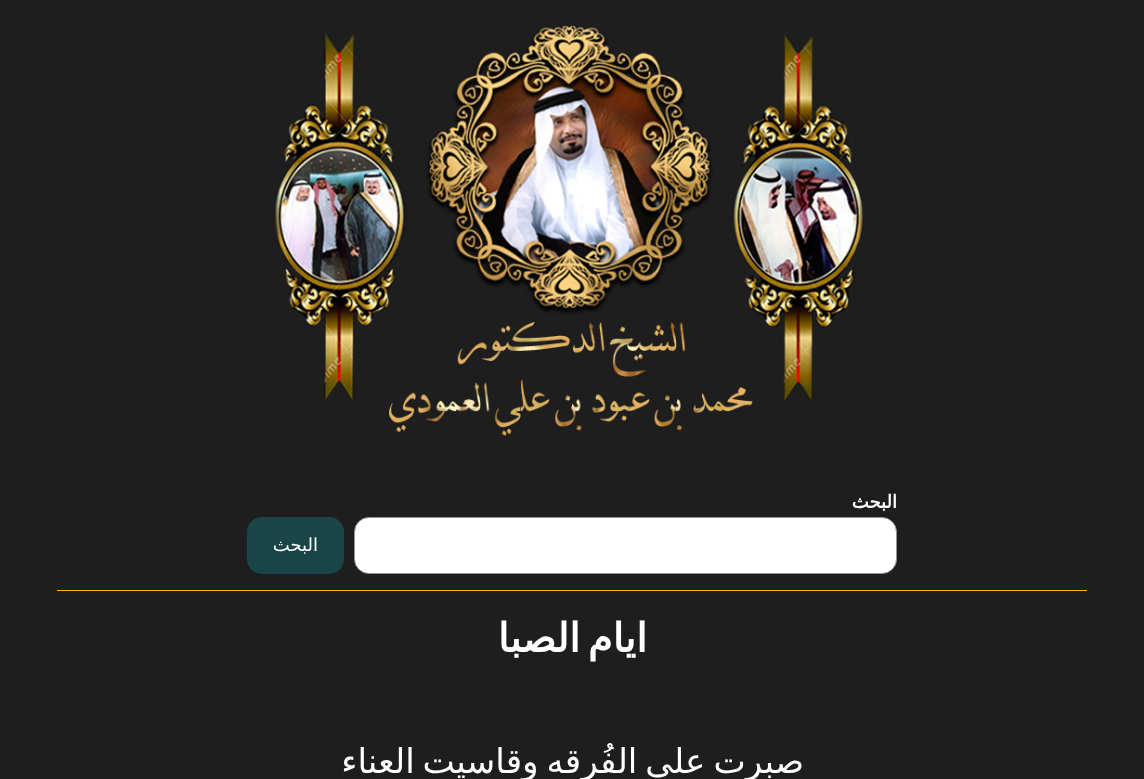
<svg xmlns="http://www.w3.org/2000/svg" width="1144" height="779">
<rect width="100%" height="100%" fill="#1e1e1e"/>
<image x="275" y="25" width="588" height="411" href="media/1.png"/>
<text x="897" y="508" style="font-family:DejaVu Sans;font-size:18px;font-weight:bold;direction:rtl;fill:#fff">البحث</text>
<rect x="354.5" y="517.5" width="542" height="56" rx="14.5" fill="#fff" stroke="#949494"/>
<rect x="247" y="517" width="97" height="57" rx="15" fill="#1a4548"/>
<text x="318" y="551" style="font-family:DejaVu Sans;font-size:18px;direction:rtl;fill:#fff">البحث</text>
<rect x="57" y="590" width="1030" height="1" fill="#fcb900"/>
<text x="647" y="652" word-spacing="-5" style="font-family:DejaVu Sans;font-size:40px;font-weight:bold;direction:rtl;fill:#fff">ايام الصبا</text>
<text x="804" y="773" word-spacing="-3" style="font-family:DejaVu Sans;font-size:34.25px;direction:rtl;fill:#fff">صبرت على الفُرقه وقاسيت العناء</text>
</svg>
